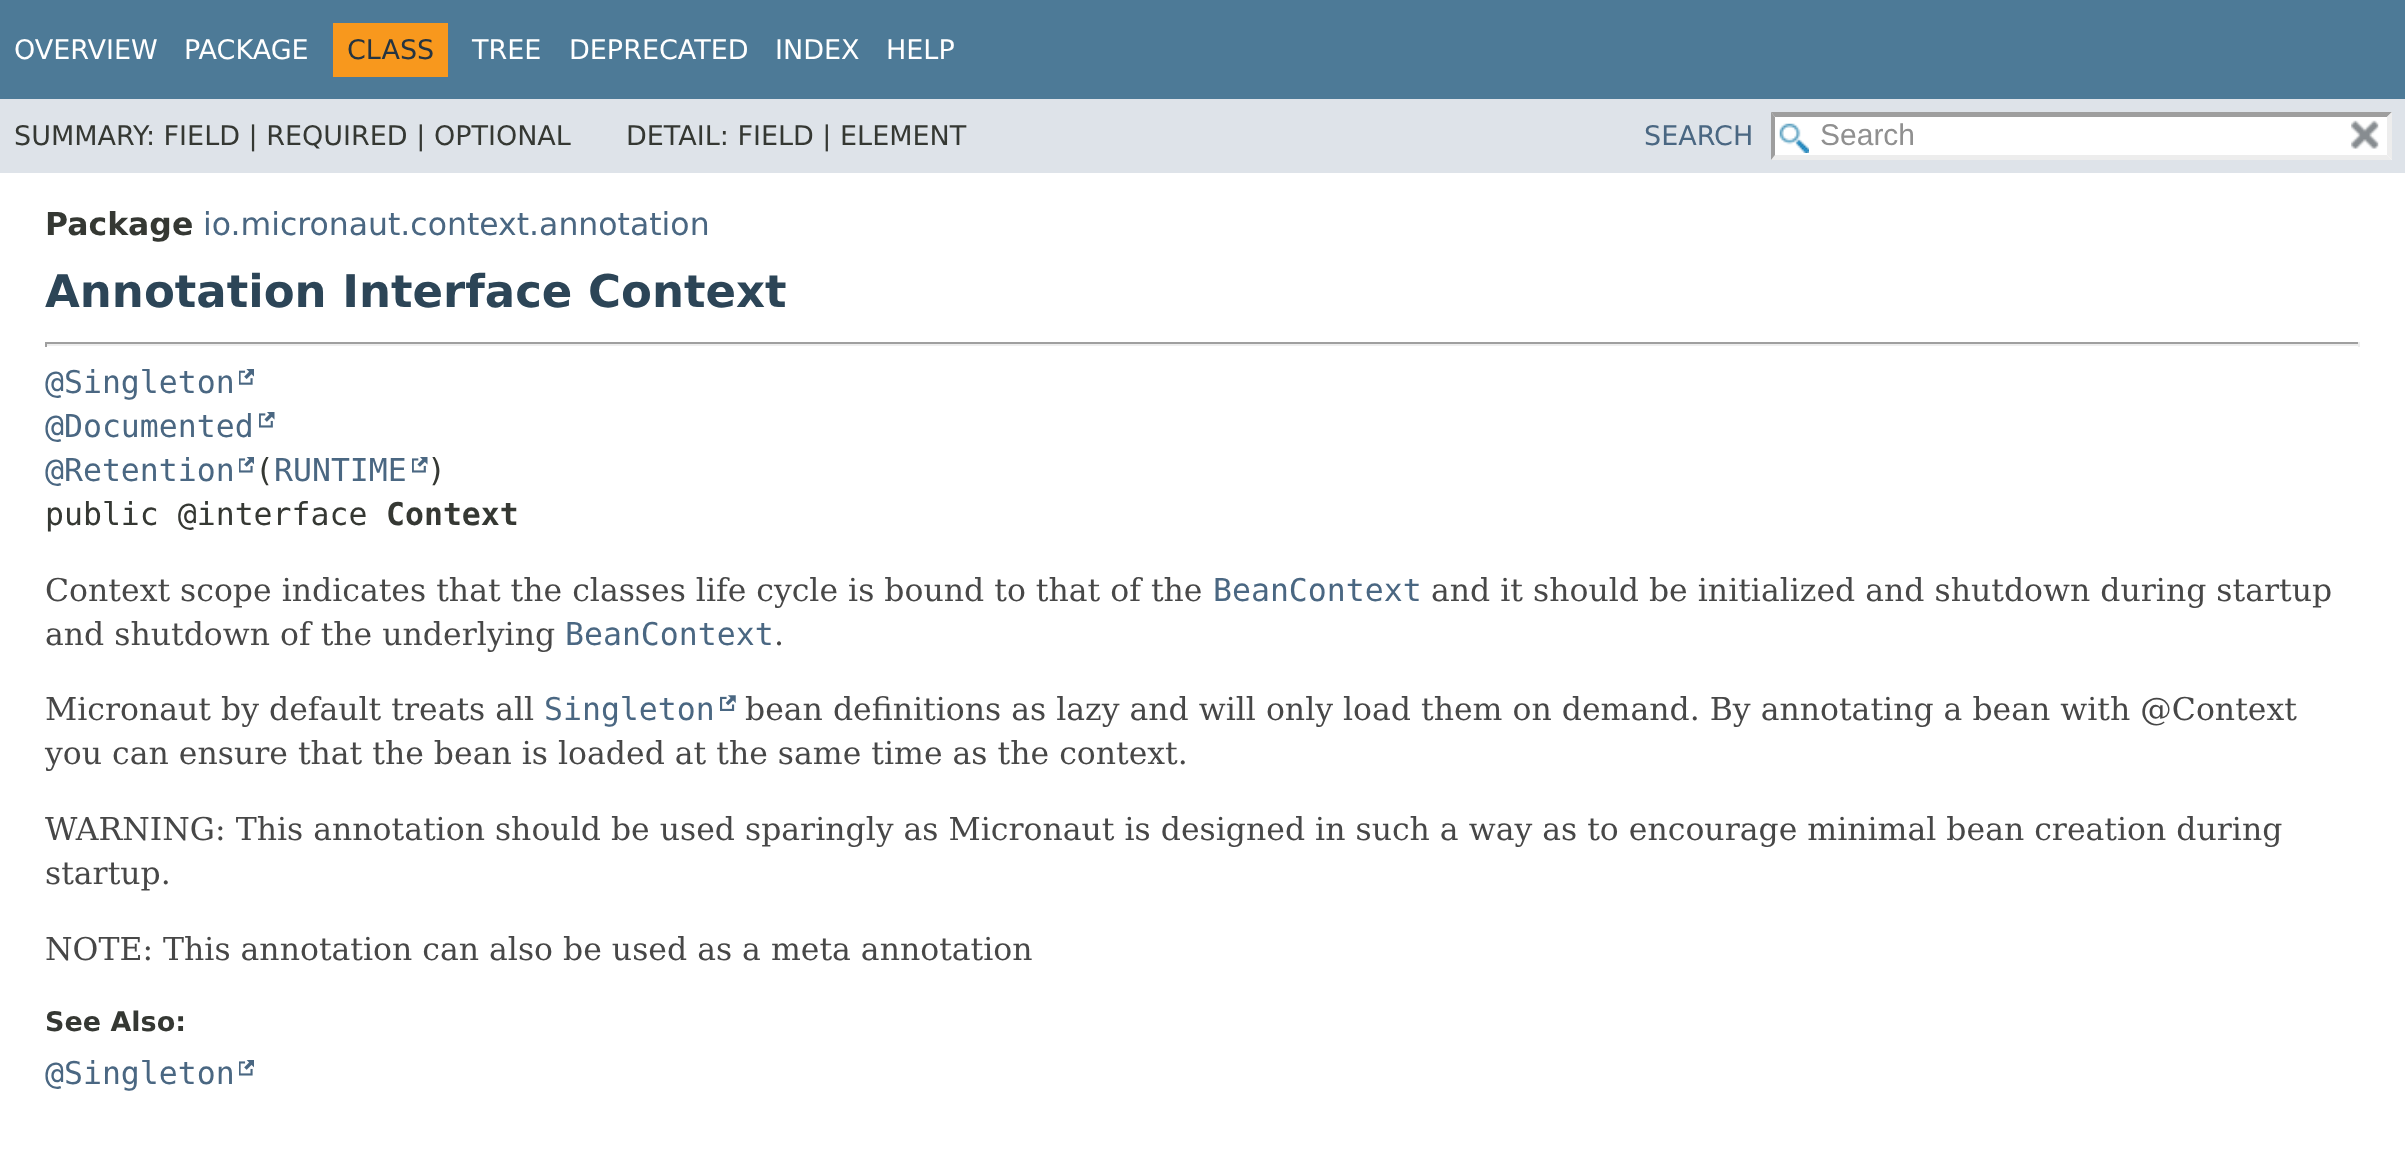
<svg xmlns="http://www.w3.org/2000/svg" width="2405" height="1176">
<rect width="100%" height="100%" fill="#fff"/>
<rect width="2405" height="99" fill="#4d7a97"/>
<text x="14" y="59" style="font-family:DejaVu Sans;font-size:27px;fill:#fff">OVERVIEW</text>
<text x="184" y="59" style="font-family:DejaVu Sans;font-size:27px;fill:#fff">PACKAGE</text>
<rect x="333" y="23" width="115" height="54" fill="#f8981d"/>
<text x="347" y="59" style="font-family:DejaVu Sans;font-size:27px;fill:#253441">CLASS</text>
<text x="472" y="59" style="font-family:DejaVu Sans;font-size:27px;fill:#fff">TREE</text>
<text x="569" y="59" style="font-family:DejaVu Sans;font-size:27px;fill:#fff">DEPRECATED</text>
<text x="775" y="59" style="font-family:DejaVu Sans;font-size:27px;fill:#fff">INDEX</text>
<text x="886" y="59" style="font-family:DejaVu Sans;font-size:27px;fill:#fff">HELP</text>
<rect y="99" width="2405" height="74" fill="#dee3e9"/>
<text x="14" y="145" style="font-family:DejaVu Sans;font-size:27px;fill:#353833">SUMMARY: FIELD | REQUIRED | OPTIONAL</text>
<text x="626" y="145" style="font-family:DejaVu Sans;font-size:27px;fill:#353833">DETAIL: FIELD | ELEMENT</text>
<text x="1644" y="145" style="font-family:DejaVu Sans;font-size:27px;fill:#4a6782">SEARCH</text>
<rect x="1771" y="113" width="621" height="47" fill="#fff"/>
<image x="1779" y="123" width="30" height="30" href="media/1.png"/>
<path d="M1771 112h621l-5 5h-612z" fill="#9e9e9e"/>
<path d="M2392 112v48l-5-5v-38z" fill="#ededed"/>
<path d="M2392 160h-621l4-5h612z" fill="#ededed"/>
<path d="M1771 160v-48l4 5v38z" fill="#9e9e9e"/>
<text x="1820" y="145" style="font-family:Liberation Sans;font-size:30px;fill:#909090">Search</text>
<image x="2351" y="120" width="28" height="29" href="media/2.png"/>
<text x="45" y="235" style="font-family:DejaVu Sans;font-size:31.5px;font-weight:bold;fill:#353833">Package</text>
<text x="203" y="235" style="font-family:DejaVu Sans;font-size:31.5px;fill:#4a6782">io.micronaut.context.annotation</text>
<text x="45" y="307" style="font-family:DejaVu Sans;font-size:45px;font-weight:bold;fill:#2c4557">Annotation Interface Context</text>
<rect x="45" y="342" width="2315" height="2" fill="#9f9f9f"/>
<rect x="2358" y="342" width="2" height="5" fill="#eee"/>
<rect x="45" y="344" width="2315" height="2" fill="#eee"/>
<rect x="45" y="342" width="2" height="5" fill="#9f9f9f"/>
<text x="45" y="393" style="font-family:DejaVu Sans Mono;font-size:31.5px;fill:#4a6782">@Singleton</text>
<image x="239" y="369" width="15" height="16" href="media/3.png"/>
<text x="45" y="437" style="font-family:DejaVu Sans Mono;font-size:31.5px;fill:#4a6782">@Documented</text>
<image x="259" y="412" width="16" height="16" href="media/4.png"/>
<text x="45" y="481" style="font-family:DejaVu Sans Mono;font-size:31.5px;fill:#4a6782">@Retention</text>
<image x="239" y="457" width="15" height="16" href="media/5.png"/>
<text x="255" y="481" style="font-family:DejaVu Sans Mono;font-size:31.5px;fill:#353833">(</text>
<text x="274" y="481" style="font-family:DejaVu Sans Mono;font-size:31.5px;fill:#4a6782">RUNTIME</text>
<image x="412" y="457" width="16" height="16" href="media/4.png"/>
<text x="427" y="481" style="font-family:DejaVu Sans Mono;font-size:31.5px;fill:#353833">)</text>
<text x="45" y="525" style="font-family:DejaVu Sans Mono;font-size:31.5px;fill:#353833">public @interface</text>
<text x="386" y="525" style="font-family:DejaVu Sans Mono;font-size:31.5px;font-weight:bold;fill:#353833">Context</text>
<text x="45" y="601" style="font-family:DejaVu Serif;font-size:31.5px;fill:#474747">Context scope indicates that the classes life cycle is bound to that of the</text>
<text x="1213" y="601" style="font-family:DejaVu Sans Mono;font-size:31.5px;fill:#4a6782">BeanContext</text>
<text x="1431" y="601" style="font-family:DejaVu Serif;font-size:31.5px;fill:#474747">and it should be initialized and shutdown during startup</text>
<text x="45" y="645" style="font-family:DejaVu Serif;font-size:31.5px;fill:#474747">and shutdown of the underlying</text>
<text x="565" y="645" style="font-family:DejaVu Sans Mono;font-size:31.5px;fill:#4a6782">BeanContext</text>
<text x="774" y="645" style="font-family:DejaVu Serif;font-size:31.5px;fill:#474747">.</text>
<text x="45" y="720" style="font-family:DejaVu Serif;font-size:31.5px;fill:#474747">Micronaut by default treats all</text>
<text x="544" y="720" style="font-family:DejaVu Sans Mono;font-size:31.5px;fill:#4a6782">Singleton</text>
<image x="720" y="695" width="16" height="16" href="media/6.png"/>
<text x="745" y="720" style="font-family:DejaVu Serif;font-size:31.5px;fill:#474747">bean definitions as lazy and will only load them on demand. By annotating a bean with @Context</text>
<text x="45" y="764" style="font-family:DejaVu Serif;font-size:31.5px;fill:#474747">you can ensure that the bean is loaded at the same time as the context.</text>
<text x="45" y="840" style="font-family:DejaVu Serif;font-size:31.5px;fill:#474747">WARNING: This annotation should be used sparingly as Micronaut is designed in such a way as to encourage minimal bean creation during</text>
<text x="45" y="884" style="font-family:DejaVu Serif;font-size:31.5px;fill:#474747">startup.</text>
<text x="45" y="960" style="font-family:DejaVu Serif;font-size:31.5px;fill:#474747">NOTE: This annotation can also be used as a meta annotation</text>
<text x="45" y="1031" style="font-family:DejaVu Sans;font-size:27px;font-weight:bold;fill:#353833">See Also:</text>
<text x="45" y="1084" style="font-family:DejaVu Sans Mono;font-size:31.5px;fill:#4a6782">@Singleton</text>
<image x="239" y="1060" width="15" height="16" href="media/5.png"/>
</svg>
